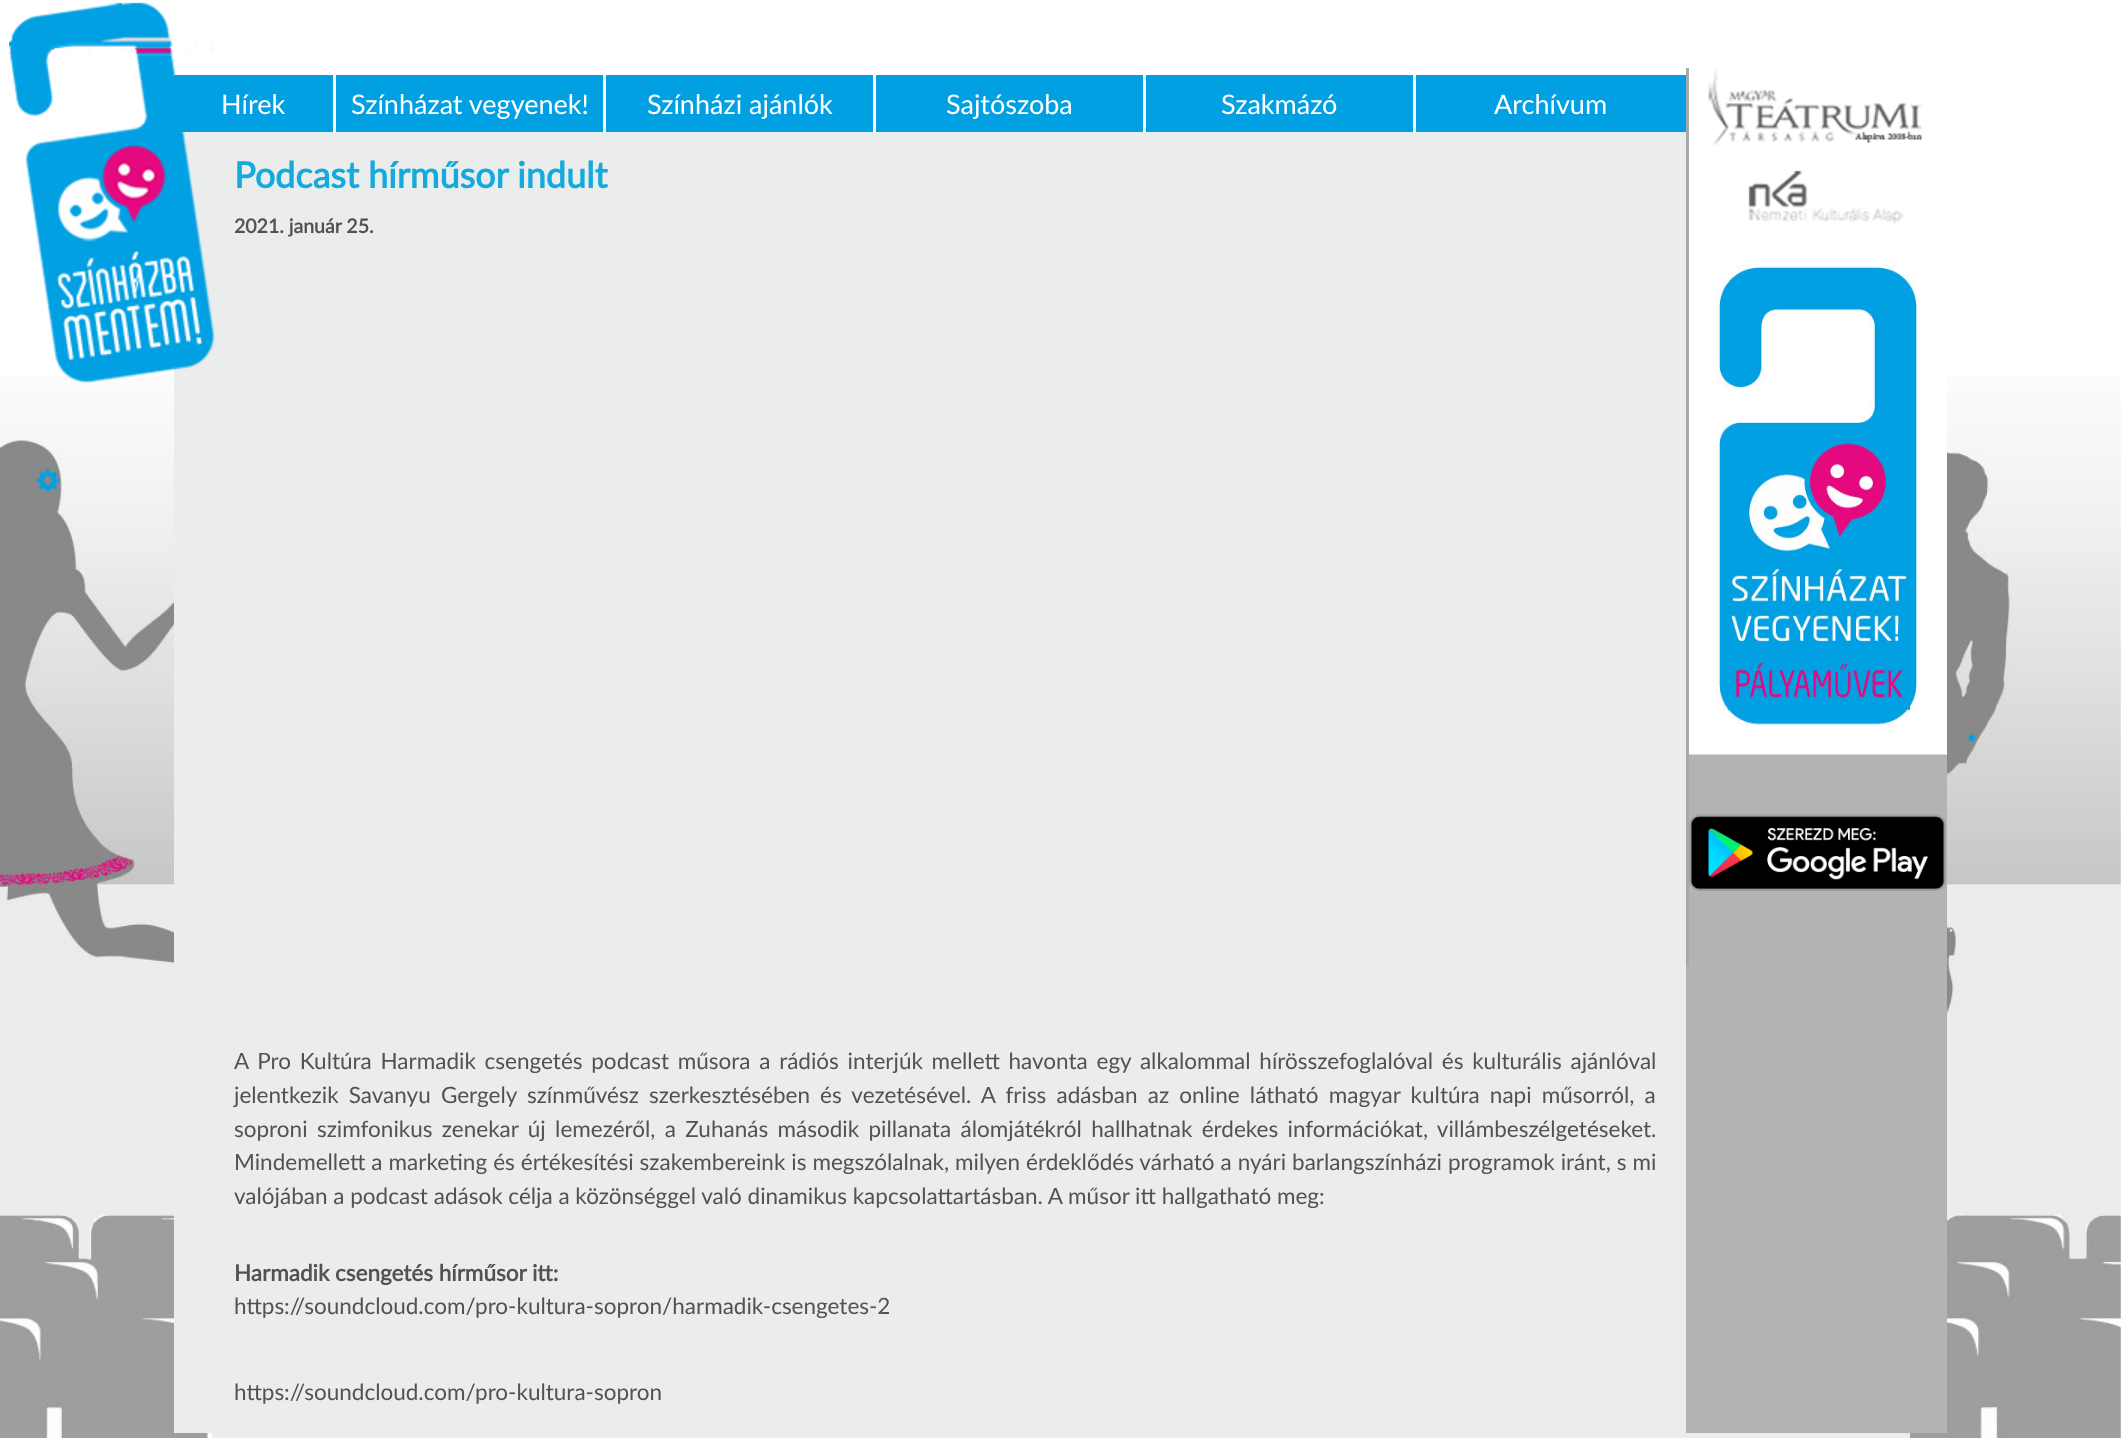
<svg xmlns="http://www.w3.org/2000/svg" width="2121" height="1438">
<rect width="100%" height="100%" fill="#fff"/>
<image x="0" y="376" width="2121" height="1062" href="media/1.png"/>
<rect x="174" y="75" width="159" height="57" fill="#00a0e3"/>
<rect x="174" y="132" width="1512" height="1301" fill="#ebecec"/>
<image x="9" y="2" width="206" height="381" href="media/2.png"/>
<text x="221" y="114" style="font-family:Lato;font-size:27px;fill:#fff">Hírek</text>
<rect x="336" y="75" width="267" height="57" fill="#00a0e3"/>
<text x="351" y="114" style="font-family:Lato;font-size:27px;fill:#fff">Színházat vegyenek!</text>
<rect x="606" y="75" width="267" height="57" fill="#00a0e3"/>
<text x="647" y="114" style="font-family:Lato;font-size:27px;fill:#fff">Színházi ajánlók</text>
<rect x="876" y="75" width="267" height="57" fill="#00a0e3"/>
<text x="946" y="114" style="font-family:Lato;font-size:27px;fill:#fff">Sajtószoba</text>
<rect x="1146" y="75" width="267" height="57" fill="#00a0e3"/>
<text x="1221" y="114" style="font-family:Lato;font-size:27px;fill:#fff">Szakmázó</text>
<rect x="1416" y="75" width="270" height="57" fill="#00a0e3"/>
<text x="1494" y="114" style="font-family:Lato;font-size:27px;fill:#fff">Archívum</text>
<text x="234" y="188" style="font-family:Lato;font-size:36px;font-weight:bold;fill:#14aadd">Podcast hírműsor indult</text>
<text x="234" y="233" style="font-family:Lato;font-size:19.5px;font-weight:bold;fill:#515352">2021. január 25.</text>
<text x="234" y="1069" word-spacing="3" style="font-family:Lato;font-size:22.5px;fill:#515352">A Pro Kultúra Harmadik csengetés podcast műsora a rádiós interjúk mellett havonta egy alkalommal hírösszefoglalóval és kulturális ajánlóval</text>
<text x="234" y="1103" word-spacing="4.4" style="font-family:Lato;font-size:22.5px;fill:#515352">jelentkezik Savanyu Gergely színművész szerkesztésében és vezetésével. A friss adásban az online látható magyar kultúra napi műsorról, a</text>
<text x="234" y="1137" word-spacing="3.6" style="font-family:Lato;font-size:22.5px;fill:#515352">soproni szimfonikus zenekar új lemezéről, a Zuhanás második pillanata álomjátékról hallhatnak érdekes információkat, villámbeszélgetéseket.</text>
<text x="234" y="1170" word-spacing="0.25" style="font-family:Lato;font-size:22.5px;fill:#515352">Mindemellett a marketing és értékesítési szakembereink is megszólalnak, milyen érdeklődés várható a nyári barlangszínházi programok iránt, s mi</text>
<text x="234" y="1204" style="font-family:Lato;font-size:22.5px;fill:#515352">valójában a podcast adások célja a közönséggel való dinamikus kapcsolattartásban. A műsor itt hallgatható meg:</text>
<text x="234" y="1281" style="font-family:Lato;font-size:22.5px;font-weight:bold;fill:#515352">Harmadik csengetés hírműsor itt:</text>
<text x="234" y="1314" style="font-family:Lato;font-size:22.5px;fill:#515352">https://soundcloud.com/pro-kultura-sopron/harmadik-csengetes-2</text>
<text x="234" y="1400" style="font-family:Lato;font-size:22.5px;fill:#515352">https://soundcloud.com/pro-kultura-sopron</text>
<rect x="1686" y="754" width="261" height="679" fill="#b2b4b3"/>
<image x="1708" y="67" width="214" height="157" href="media/3.png"/>
<rect x="1686" y="68" width="3" height="898" fill="#a7a8a8"/>
<image x="1689" y="237" width="258" height="518" href="media/4.png"/>
<image x="1689" y="814" width="257" height="77" href="media/5.png"/>
<rect x="212" y="1433" width="1698" height="5" fill="#ebecec"/>
</svg>
